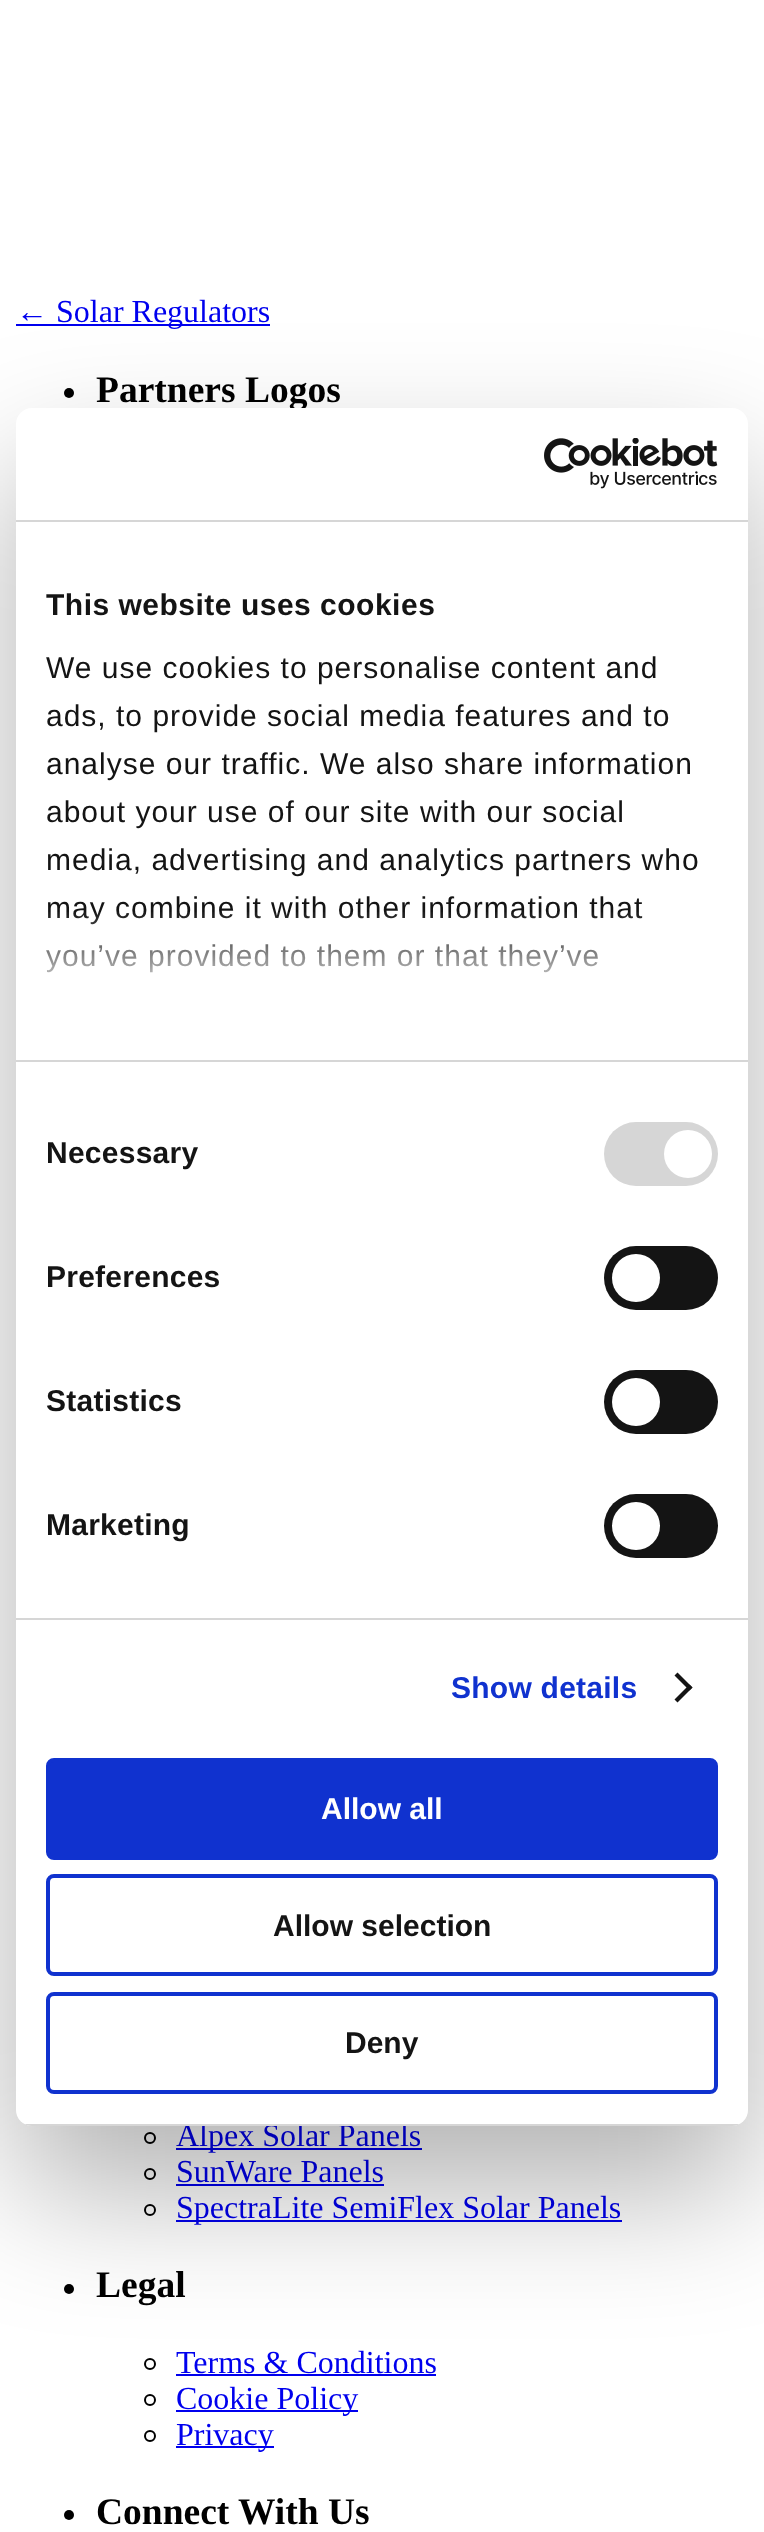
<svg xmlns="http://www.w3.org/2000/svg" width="764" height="2532">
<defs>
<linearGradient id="g1" gradientUnits="userSpaceOnUse" x1="369" y1="1060" x2="369" y2="910"><stop offset="0" stop-color="#fff"/><stop offset="0.5" stop-color="#fff" stop-opacity="0.8"/><stop offset="1" stop-color="#fff" stop-opacity="0"/></linearGradient>
<clipPath id="clip1"><rect x="16" y="408" width="732" height="1718" rx="16"/></clipPath>
</defs>
<rect width="100%" height="100%" fill="#fff"/>
<rect x="16" y="324" width="254" height="2" fill="#00e"/>
<text x="16" y="322" style="font-family:Liberation Serif;font-size:32px;fill:#00e">← Solar Regulators</text>
<circle cx="69" cy="393" r="5" fill="#000"/>
<text x="96" y="402" style="font-family:Liberation Serif;font-size:37.5px;font-weight:bold;fill:#000">Partners Logos</text>
<circle cx="150" cy="2138" r="5" fill="none" stroke="#000" stroke-width="2"/>
<rect x="176" y="2148" width="246" height="2" fill="#00e"/>
<text x="176" y="2146" style="font-family:Liberation Serif;font-size:32px;fill:#00e">Alpex Solar Panels</text>
<circle cx="150" cy="2174" r="5" fill="none" stroke="#000" stroke-width="2"/>
<text x="176" y="2182" style="font-family:Liberation Serif;font-size:32px;fill:#00e">SunWare Panels</text>
<rect x="176" y="2184" width="208" height="2" fill="#00e"/>
<circle cx="150" cy="2210" r="5" fill="none" stroke="#000" stroke-width="2"/>
<rect x="176" y="2220" width="446" height="2" fill="#00e"/>
<text x="176" y="2218" style="font-family:Liberation Serif;font-size:32px;fill:#00e">SpectraLite SemiFlex Solar Panels</text>
<circle cx="69" cy="2289" r="5" fill="#000"/>
<text x="96" y="2297" style="font-family:Liberation Serif;font-size:37.5px;font-weight:bold;fill:#000">Legal</text>
<circle cx="150" cy="2364" r="5" fill="none" stroke="#000" stroke-width="2"/>
<text x="176" y="2373" style="font-family:Liberation Serif;font-size:32px;fill:#00e">Terms &amp; Conditions</text>
<rect x="176" y="2374" width="260" height="2" fill="#00e"/>
<circle cx="150" cy="2400" r="5" fill="none" stroke="#000" stroke-width="2"/>
<rect x="176" y="2410" width="182" height="2" fill="#00e"/>
<text x="176" y="2409" style="font-family:Liberation Serif;font-size:32px;fill:#00e">Cookie Policy</text>
<circle cx="150" cy="2436" r="5" fill="none" stroke="#000" stroke-width="2"/>
<rect x="176" y="2446" width="98" height="2" fill="#00e"/>
<text x="176" y="2445" style="font-family:Liberation Serif;font-size:32px;fill:#00e">Privacy</text>
<circle cx="69" cy="2515" r="5" fill="#000"/>
<text x="96" y="2524" style="font-family:Liberation Serif;font-size:37.5px;font-weight:bold;fill:#000">Connect With Us</text>
<rect x="16" y="472" width="732" height="1718" rx="16" fill="#0000004d" filter="blur(68px)"/>
<rect x="16" y="408" width="732" height="1718" rx="16" fill="#fff"/>
<rect x="16" y="520" width="732" height="2" fill="#d6d6d6"/>
<image x="544" y="438" width="174" height="51" href="media/1.png"/>
<rect x="16" y="1060" width="732" height="2" fill="#d6d6d6"/>
<text x="46" y="615" style="font-family:Liberation Sans;font-size:30px;font-weight:bold;letter-spacing:0.5px;fill:#141414">This website uses cookies</text>
<text x="46" y="678" style="font-family:Liberation Sans;font-size:30px;letter-spacing:1px;fill:#141414">We use cookies to personalise content and</text>
<text x="46" y="726" style="font-family:Liberation Sans;font-size:30px;letter-spacing:1px;fill:#141414">ads, to provide social media features and to</text>
<text x="46" y="774" style="font-family:Liberation Sans;font-size:30px;letter-spacing:1px;fill:#141414">analyse our traffic. We also share information</text>
<text x="46" y="822" style="font-family:Liberation Sans;font-size:30px;letter-spacing:1px;fill:#141414">about your use of our site with our social</text>
<text x="46" y="870" style="font-family:Liberation Sans;font-size:30px;letter-spacing:1px;fill:#141414">media, advertising and analytics partners who</text>
<text x="46" y="918" style="font-family:Liberation Sans;font-size:30px;letter-spacing:1px;fill:#141414">may combine it with other information that</text>
<text x="46" y="966" style="font-family:Liberation Sans;font-size:30px;letter-spacing:1px;fill:#141414">you’ve provided to them or that they’ve</text>
<rect x="46" y="912" width="596" height="61" fill="url(#g1)"/>
<rect x="16" y="1618" width="732" height="2" fill="#d6d6d6"/>
<text x="46" y="1163" style="font-family:Liberation Sans;font-size:30px;font-weight:bold;letter-spacing:0.25px;fill:#141414">Necessary</text>
<rect x="604" y="1122" width="114" height="64" rx="32" fill="#d6d6d6"/>
<circle cx="688" cy="1154" r="24" fill="#fff"/>
<text x="46" y="1287" style="font-family:Liberation Sans;font-size:30px;font-weight:bold;letter-spacing:0.25px;fill:#141414">Preferences</text>
<rect x="604" y="1246" width="114" height="64" rx="32" fill="#141414"/>
<circle cx="636" cy="1278" r="24" fill="#fff"/>
<text x="46" y="1411" style="font-family:Liberation Sans;font-size:30px;font-weight:bold;letter-spacing:0.25px;fill:#141414">Statistics</text>
<rect x="604" y="1370" width="114" height="64" rx="32" fill="#141414"/>
<circle cx="636" cy="1402" r="24" fill="#fff"/>
<text x="46" y="1535" style="font-family:Liberation Sans;font-size:30px;font-weight:bold;letter-spacing:0.25px;fill:#141414">Marketing</text>
<rect x="604" y="1494" width="114" height="64" rx="32" fill="#141414"/>
<circle cx="636" cy="1526" r="24" fill="#fff"/>
<text x="451" y="1698" style="font-family:Liberation Sans;font-size:30px;font-weight:bold;letter-spacing:0.25px;fill:#1032cf">Show details</text>
<path d="M677.5 1672.5l15 15l-3 3l-15-15z" fill="#141414"/>
<path d="M689.5 1684.5l3 3l-15 15l-3-3z" fill="#141414"/>
<g clip-path="url(#clip1)">
<rect x="16" y="2124" width="732" height="2" fill="#d6d6d6"/>
</g>
<rect x="48" y="1760" width="668" height="98" rx="6" fill="#1032cf" stroke="#1032cf" stroke-width="4"/>
<text x="321" y="1819" style="font-family:Liberation Sans;font-size:30px;font-weight:bold;fill:#fff">Allow all</text>
<rect x="48" y="1876" width="668" height="98" rx="6" fill="none" stroke="#1032cf" stroke-width="4"/>
<text x="273" y="1936" style="font-family:Liberation Sans;font-size:30px;font-weight:bold;fill:#141414">Allow selection</text>
<rect x="48" y="1994" width="668" height="98" rx="6" fill="none" stroke="#1032cf" stroke-width="4"/>
<text x="345" y="2053" style="font-family:Liberation Sans;font-size:30px;font-weight:bold;fill:#141414">Deny</text>
</svg>
